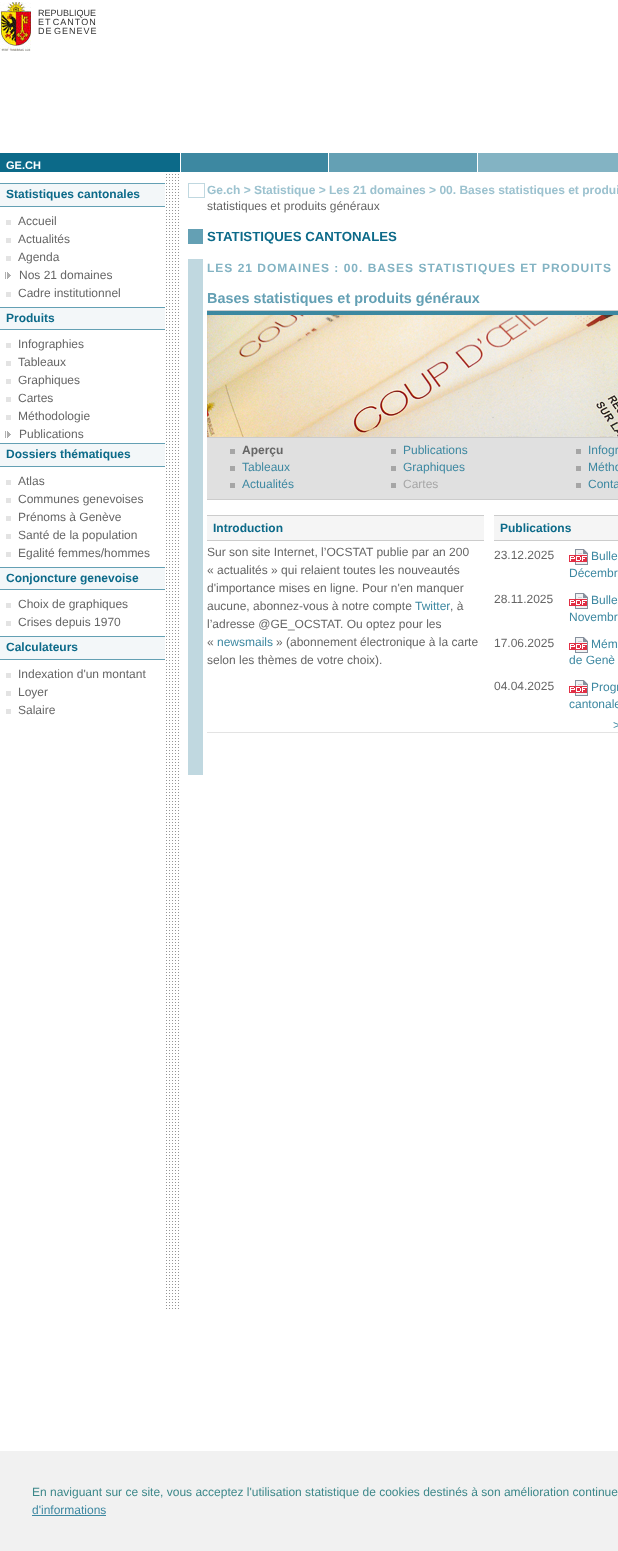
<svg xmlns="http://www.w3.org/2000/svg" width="618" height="1551">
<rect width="100%" height="100%" fill="#fff"/>
<image x="0" y="2" width="31" height="49" href="media/1.png"/>
<text x="38" y="16" style="font-family:Liberation Sans;font-size:9px;fill:#333">REPUBLIQUE</text>
<text x="38" y="25" word-spacing="-2" style="font-family:Liberation Sans;font-size:9px;letter-spacing:1px;fill:#333">ET CANTON</text>
<text x="38" y="34" word-spacing="-2" style="font-family:Liberation Sans;font-size:9px;letter-spacing:1px;fill:#333">DE GENEVE</text>
<rect y="153" width="180" height="19" fill="#0c6a89"/>
<text x="6" y="169" style="font-family:Liberation Sans;font-size:11px;font-weight:bold;fill:#fff">GE.CH</text>
<rect x="181" y="153" width="147" height="19" fill="#3d88a1"/>
<rect x="329" y="153" width="148" height="19" fill="#64a0b4"/>
<rect x="478" y="153" width="140" height="19" fill="#83b3c3"/>
<image x="166" y="174" width="13" height="1135" href="media/2.png"/>
<rect y="184" width="165" height="22" fill="#f3f7f9"/>
<rect y="183" width="165" height="1" fill="#64a0b4"/>
<rect y="206" width="165" height="1" fill="#64a0b4"/>
<text x="6" y="198" style="font-family:Liberation Sans;font-size:12px;font-weight:bold;fill:#0c6a89">Statistiques cantonales</text>
<rect x="6" y="220" width="5" height="5" fill="#e3e3e3"/>
<text x="18" y="225" style="font-family:Liberation Sans;font-size:12px;fill:#666">Accueil</text>
<rect x="6" y="238" width="5" height="5" fill="#e3e3e3"/>
<text x="18" y="243" style="font-family:Liberation Sans;font-size:12px;fill:#666">Actualités</text>
<rect x="6" y="256" width="5" height="5" fill="#e3e3e3"/>
<text x="18" y="261" style="font-family:Liberation Sans;font-size:12px;fill:#666">Agenda</text>
<image x="5" y="272" width="6" height="7" href="media/3.png"/>
<text x="19" y="279" style="font-family:Liberation Sans;font-size:12px;fill:#666">Nos 21 domaines</text>
<rect x="6" y="292" width="5" height="5" fill="#e3e3e3"/>
<text x="18" y="297" style="font-family:Liberation Sans;font-size:12px;fill:#666">Cadre institutionnel</text>
<rect y="308" width="165" height="21" fill="#f3f7f9"/>
<rect y="307" width="165" height="1" fill="#64a0b4"/>
<rect y="329" width="165" height="1" fill="#64a0b4"/>
<text x="6" y="322" style="font-family:Liberation Sans;font-size:12px;font-weight:bold;fill:#0c6a89">Produits</text>
<rect x="6" y="343" width="5" height="5" fill="#e3e3e3"/>
<text x="18" y="348" style="font-family:Liberation Sans;font-size:12px;fill:#666">Infographies</text>
<rect x="6" y="361" width="5" height="5" fill="#e3e3e3"/>
<text x="18" y="366" style="font-family:Liberation Sans;font-size:12px;fill:#666">Tableaux</text>
<rect x="6" y="379" width="5" height="5" fill="#e3e3e3"/>
<text x="18" y="384" style="font-family:Liberation Sans;font-size:12px;fill:#666">Graphiques</text>
<rect x="6" y="397" width="5" height="5" fill="#e3e3e3"/>
<text x="18" y="402" style="font-family:Liberation Sans;font-size:12px;fill:#666">Cartes</text>
<rect x="6" y="415" width="5" height="5" fill="#e3e3e3"/>
<text x="18" y="420" style="font-family:Liberation Sans;font-size:12px;fill:#666">Méthodologie</text>
<image x="5" y="431" width="6" height="7" href="media/3.png"/>
<text x="19" y="438" style="font-family:Liberation Sans;font-size:12px;fill:#666">Publications</text>
<rect y="444" width="165" height="22" fill="#f3f7f9"/>
<rect y="443" width="165" height="1" fill="#64a0b4"/>
<rect y="466" width="165" height="1" fill="#64a0b4"/>
<text x="6" y="458" style="font-family:Liberation Sans;font-size:12px;font-weight:bold;fill:#0c6a89">Dossiers thématiques</text>
<rect x="6" y="480" width="5" height="5" fill="#e3e3e3"/>
<text x="18" y="485" style="font-family:Liberation Sans;font-size:12px;fill:#666">Atlas</text>
<rect x="6" y="498" width="5" height="5" fill="#e3e3e3"/>
<text x="18" y="503" style="font-family:Liberation Sans;font-size:12px;fill:#666">Communes genevoises</text>
<rect x="6" y="516" width="5" height="5" fill="#e3e3e3"/>
<text x="18" y="521" style="font-family:Liberation Sans;font-size:12px;fill:#666">Prénoms à Genève</text>
<rect x="6" y="534" width="5" height="5" fill="#e3e3e3"/>
<text x="18" y="539" style="font-family:Liberation Sans;font-size:12px;fill:#666">Santé de la population</text>
<rect x="6" y="552" width="5" height="5" fill="#e3e3e3"/>
<text x="18" y="557" style="font-family:Liberation Sans;font-size:12px;fill:#666">Egalité femmes/hommes</text>
<rect y="568" width="165" height="21" fill="#f3f7f9"/>
<rect y="567" width="165" height="1" fill="#64a0b4"/>
<rect y="589" width="165" height="1" fill="#64a0b4"/>
<text x="6" y="582" style="font-family:Liberation Sans;font-size:12px;font-weight:bold;fill:#0c6a89">Conjoncture genevoise</text>
<rect x="6" y="603" width="5" height="5" fill="#e3e3e3"/>
<text x="18" y="608" style="font-family:Liberation Sans;font-size:12px;fill:#666">Choix de graphiques</text>
<rect x="6" y="621" width="5" height="5" fill="#e3e3e3"/>
<text x="18" y="626" style="font-family:Liberation Sans;font-size:12px;fill:#666">Crises depuis 1970</text>
<rect y="637" width="165" height="22" fill="#f3f7f9"/>
<rect y="636" width="165" height="1" fill="#64a0b4"/>
<rect y="659" width="165" height="1" fill="#64a0b4"/>
<text x="6" y="651" style="font-family:Liberation Sans;font-size:12px;font-weight:bold;fill:#0c6a89">Calculateurs</text>
<rect x="6" y="673" width="5" height="5" fill="#e3e3e3"/>
<text x="18" y="678" style="font-family:Liberation Sans;font-size:12px;fill:#666">Indexation d'un montant</text>
<rect x="6" y="691" width="5" height="5" fill="#e3e3e3"/>
<text x="18" y="696" style="font-family:Liberation Sans;font-size:12px;fill:#666">Loyer</text>
<rect x="6" y="709" width="5" height="5" fill="#e3e3e3"/>
<text x="18" y="714" style="font-family:Liberation Sans;font-size:12px;fill:#666">Salaire</text>
<rect x="188.5" y="183.5" width="16" height="14" fill="none" stroke="#c0d8e0"/>
<text x="207" y="194" style="font-family:Liberation Sans;font-size:12px;font-weight:bold;fill:#9cc2cf">Ge.ch &gt; Statistique &gt; Les 21 domaines &gt; 00. Bases statistiques et produi</text>
<text x="207" y="210" style="font-family:Liberation Sans;font-size:12px;fill:#666">statistiques et produits généraux</text>
<rect x="188" y="229" width="15" height="15" fill="#64a0b4"/>
<text x="207" y="241" style="font-family:Liberation Sans;font-size:13.25px;font-weight:bold;fill:#0c6a89">STATISTIQUES CANTONALES</text>
<rect x="188" y="259" width="15" height="516" fill="#c0d8e0"/>
<text x="207" y="272" style="font-family:Liberation Sans;font-size:12px;font-weight:bold;letter-spacing:1px;fill:#83b3c3">LES 21 DOMAINES : 00. BASES STATISTIQUES ET PRODUITS</text>
<text x="207" y="303" style="font-family:Liberation Sans;font-size:14.4px;font-weight:bold;fill:#64a0b4">Bases statistiques et produits généraux</text>
<rect x="207" y="499" width="411" height="1" fill="#ccc"/>
<rect x="207" y="310" width="411" height="1" fill="#ccc"/>
<image x="207" y="311" width="411" height="126" href="media/4.png"/>
<rect x="207" y="438" width="411" height="61" fill="#e0e0e0"/>
<rect x="207" y="437" width="411" height="1" fill="#ccc"/>
<rect x="230" y="449" width="5" height="5" fill="#a6a6a6"/>
<text x="242" y="454" style="font-family:Liberation Sans;font-size:12px;font-weight:bold;fill:#666">Aperçu</text>
<rect x="230" y="466" width="5" height="5" fill="#a6a6a6"/>
<text x="242" y="471" style="font-family:Liberation Sans;font-size:12px;fill:#3d88a1">Tableaux</text>
<rect x="230" y="483" width="5" height="5" fill="#a6a6a6"/>
<text x="242" y="488" style="font-family:Liberation Sans;font-size:12px;fill:#3d88a1">Actualités</text>
<rect x="391" y="449" width="5" height="5" fill="#a6a6a6"/>
<text x="403" y="454" style="font-family:Liberation Sans;font-size:12px;fill:#3d88a1">Publications</text>
<rect x="391" y="466" width="5" height="5" fill="#a6a6a6"/>
<text x="403" y="471" style="font-family:Liberation Sans;font-size:12px;fill:#3d88a1">Graphiques</text>
<rect x="391" y="483" width="5" height="5" fill="#a6a6a6"/>
<text x="403" y="488" style="font-family:Liberation Sans;font-size:12px;fill:#a7a7a7">Cartes</text>
<rect x="576" y="449" width="5" height="5" fill="#a6a6a6"/>
<text x="588" y="454" style="font-family:Liberation Sans;font-size:12px;fill:#3d88a1">Infogr</text>
<rect x="576" y="466" width="5" height="5" fill="#a6a6a6"/>
<text x="588" y="471" style="font-family:Liberation Sans;font-size:12px;fill:#3d88a1">Métho</text>
<rect x="576" y="483" width="5" height="5" fill="#a6a6a6"/>
<text x="588" y="488" style="font-family:Liberation Sans;font-size:12px;fill:#3d88a1">Conta</text>
<rect x="207" y="516" width="277" height="24" fill="#f5f5f5"/>
<rect x="207" y="515" width="277" height="1" fill="#ccc"/>
<rect x="207" y="540" width="277" height="1" fill="#ccc"/>
<text x="213" y="532" style="font-family:Liberation Sans;font-size:12px;font-weight:bold;fill:#0c6a89">Introduction</text>
<text x="207" y="556" style="font-family:Liberation Sans;font-size:12px;fill:#666">Sur son site Internet, l’OCSTAT publie par an 200</text>
<text x="207" y="574" style="font-family:Liberation Sans;font-size:12px;fill:#666">« actualités » qui relaient toutes les nouveautés</text>
<text x="207" y="592" style="font-family:Liberation Sans;font-size:12px;fill:#666">d'importance mises en ligne. Pour n'en manquer</text>
<text x="207" y="610" style="font-family:Liberation Sans;font-size:12px;fill:#666">aucune, abonnez-vous à notre compte</text>
<text x="415" y="610" style="font-family:Liberation Sans;font-size:12px;fill:#3d88a1">Twitter</text>
<text x="450" y="610" style="font-family:Liberation Sans;font-size:12px;fill:#666">, à</text>
<text x="207" y="628" style="font-family:Liberation Sans;font-size:12px;fill:#666">l’adresse @GE_OCSTAT. Ou optez pour les</text>
<text x="207" y="646" style="font-family:Liberation Sans;font-size:12px;fill:#666">«</text>
<text x="217" y="646" style="font-family:Liberation Sans;font-size:12px;fill:#3d88a1">newsmails</text>
<text x="276" y="646" style="font-family:Liberation Sans;font-size:12px;fill:#666">» (abonnement électronique à la carte</text>
<text x="207" y="664" style="font-family:Liberation Sans;font-size:12px;fill:#666">selon les thèmes de votre choix).</text>
<rect x="494" y="516" width="124" height="24" fill="#f5f5f5"/>
<rect x="494" y="515" width="124" height="1" fill="#ccc"/>
<rect x="494" y="540" width="124" height="1" fill="#ccc"/>
<text x="500" y="532" style="font-family:Liberation Sans;font-size:12px;font-weight:bold;fill:#0c6a89">Publications</text>
<text x="494" y="559" style="font-family:Liberation Sans;font-size:12px;fill:#666">23.12.2025</text>
<image x="569" y="549" width="19" height="16" href="media/5.png"/>
<text x="591" y="560" style="font-family:Liberation Sans;font-size:12px;fill:#3d88a1">Bulle</text>
<text x="569" y="577" style="font-family:Liberation Sans;font-size:12px;fill:#3d88a1">Décembr</text>
<text x="494" y="603" style="font-family:Liberation Sans;font-size:12px;fill:#666">28.11.2025</text>
<image x="569" y="593" width="19" height="16" href="media/5.png"/>
<text x="591" y="604" style="font-family:Liberation Sans;font-size:12px;fill:#3d88a1">Bulle</text>
<text x="569" y="621" style="font-family:Liberation Sans;font-size:12px;fill:#3d88a1">Novembr</text>
<text x="494" y="647" style="font-family:Liberation Sans;font-size:12px;fill:#666">17.06.2025</text>
<image x="569" y="637" width="19" height="16" href="media/5.png"/>
<text x="591" y="648" style="font-family:Liberation Sans;font-size:12px;fill:#3d88a1">Mém</text>
<text x="569" y="664" style="font-family:Liberation Sans;font-size:12px;fill:#3d88a1">de Genè</text>
<text x="494" y="690" style="font-family:Liberation Sans;font-size:12px;fill:#666">04.04.2025</text>
<image x="569" y="680" width="19" height="16" href="media/5.png"/>
<text x="591" y="691" style="font-family:Liberation Sans;font-size:12px;fill:#3d88a1">Progr</text>
<text x="569" y="708" style="font-family:Liberation Sans;font-size:12px;fill:#3d88a1">cantonale</text>
<text x="613" y="729" style="font-family:Liberation Sans;font-size:12px;fill:#3d88a1">&gt;</text>
<rect x="207" y="732" width="411" height="1" fill="#e3e3e3"/>
<rect y="1451" width="618" height="100" fill="#f1f1f1"/>
<text x="32" y="1496" style="font-family:Liberation Sans;font-size:12px;fill:#3d888a">En naviguant sur ce site, vous acceptez l'utilisation statistique de cookies destinés à son amélioration continue</text>
<text x="32" y="1514" style="font-family:Liberation Sans;font-size:12px;fill:#3d88a1">d'informations</text>
<rect x="32" y="1515" width="74" height="1" fill="#3d88a1"/>
</svg>
